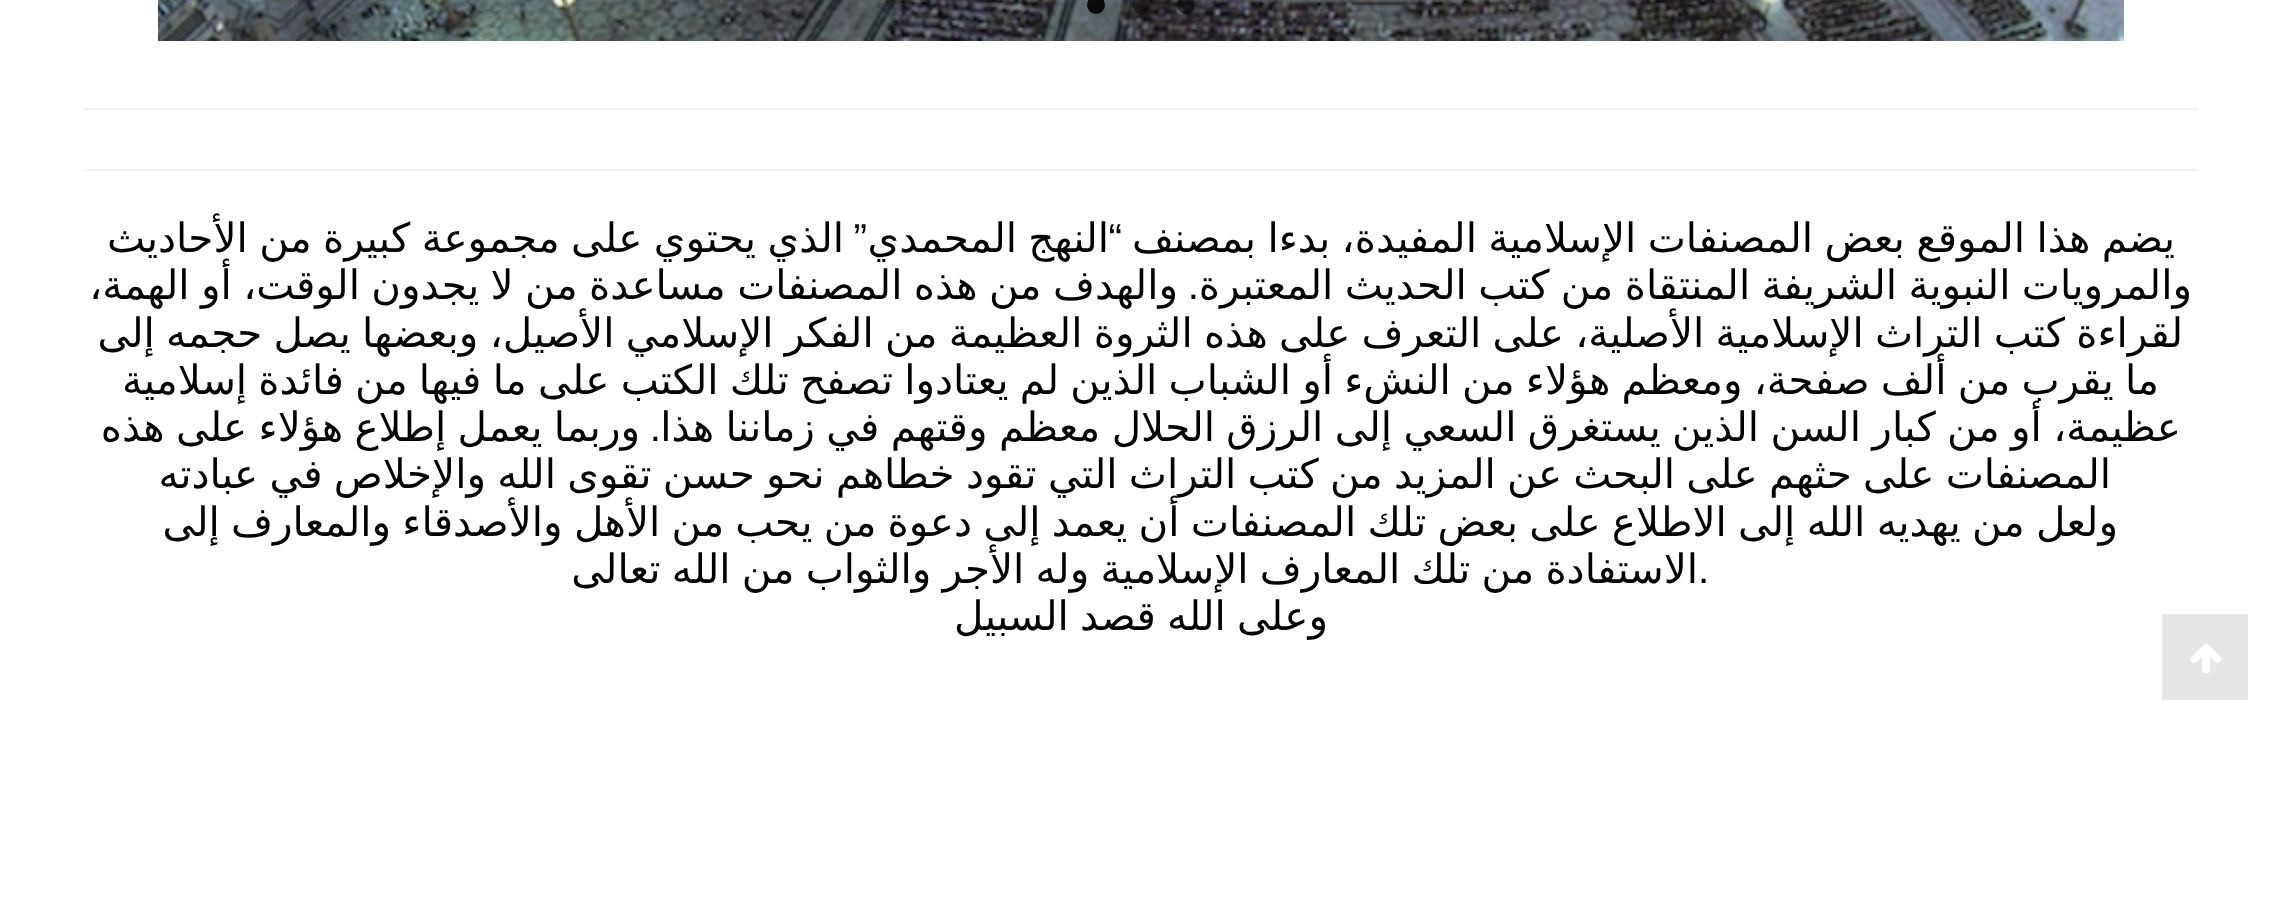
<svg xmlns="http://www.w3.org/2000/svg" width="2280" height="905">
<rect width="100%" height="100%" fill="#fff"/>
<image x="158" y="0" width="1966" height="41" href="media/1.png"/>
<circle cx="1186" cy="5" r="9" fill="#00000080"/>
<circle cx="1141" cy="5" r="9" fill="#00000080"/>
<circle cx="1096" cy="5" r="9" fill="#000000e6"/>
<rect x="83" y="108" width="2115" height="2" fill="#f2f2f2"/>
<rect x="83" y="169" width="2115" height="2" fill="#f2f2f2"/>
<text x="2175" y="252" word-spacing="-1.5" style="font-family:DejaVu Sans;font-size:40.5px;direction:rtl;fill:#000">يضم هذا الموقع بعض المصنفات الإسلامية المفيدة، بدءا بمصنف</text>
<text x="1122" y="252" style="font-family:Liberation Sans;font-size:40.5px;direction:rtl;fill:#000">“</text>
<text x="1109" y="252" word-spacing="-1.5" style="font-family:DejaVu Sans;font-size:40.5px;direction:rtl;fill:#000">النهج المحمدي</text>
<text x="867" y="252" style="font-family:Liberation Sans;font-size:40.5px;direction:rtl;fill:#000">”</text>
<text x="844" y="252" word-spacing="-1.5" style="font-family:DejaVu Sans;font-size:40.5px;direction:rtl;fill:#000">الذي يحتوي على مجموعة كبيرة من الأحاديث</text>
<text x="2192" y="299" word-spacing="-1.5" style="font-family:DejaVu Sans;font-size:40.5px;direction:rtl;fill:#000">والمرويات النبوية الشريفة المنتقاة من كتب الحديث المعتبرة</text>
<text x="1199" y="299" style="font-family:Liberation Sans;font-size:40.5px;direction:rtl;fill:#000">.</text>
<text x="1178" y="299" word-spacing="-1.5" style="font-family:DejaVu Sans;font-size:40.5px;direction:rtl;fill:#000">والهدف من هذه المصنفات مساعدة من لا يجدون الوقت، أو الهمة،</text>
<text x="2183" y="347" word-spacing="-1.6" style="font-family:DejaVu Sans;font-size:40.5px;direction:rtl;fill:#000">لقراءة كتب التراث الإسلامية الأصلية، على التعرف على هذه الثروة العظيمة من الفكر الإسلامي الأصيل، وبعضها يصل حجمه إلى</text>
<text x="2159" y="394" word-spacing="-1.6" style="font-family:DejaVu Sans;font-size:40.5px;direction:rtl;fill:#000">ما يقرب من ألف صفحة، ومعظم هؤلاء من النشء أو الشباب الذين لم يعتادوا تصفح تلك الكتب على ما فيها من فائدة إسلامية</text>
<text x="2181" y="441" word-spacing="-1.5" style="font-family:DejaVu Sans;font-size:40.5px;direction:rtl;fill:#000">عظيمة، أو من كبار السن الذين يستغرق السعي إلى الرزق الحلال معظم وقتهم في زماننا هذا</text>
<text x="661" y="441" style="font-family:Liberation Sans;font-size:40.5px;direction:rtl;fill:#000">.</text>
<text x="640" y="441" word-spacing="-1.5" style="font-family:DejaVu Sans;font-size:40.5px;direction:rtl;fill:#000">وربما يعمل إطلاع هؤلاء على هذه</text>
<text x="2111" y="488" word-spacing="-1.6" style="font-family:DejaVu Sans;font-size:40.5px;direction:rtl;fill:#000">المصنفات على حثهم على البحث عن المزيد من كتب التراث التي تقود خطاهم نحو حسن تقوى الله والإخلاص في عبادته</text>
<text x="2118" y="536" word-spacing="-1.6" style="font-family:DejaVu Sans;font-size:40.5px;direction:rtl;fill:#000">ولعل من يهديه الله إلى الاطلاع على بعض تلك المصنفات أن يعمد إلى دعوة من يحب من الأهل والأصدقاء والمعارف إلى</text>
<text x="1698" y="583" word-spacing="-1.6" style="font-family:DejaVu Sans;font-size:40.5px;direction:rtl;fill:#000">الاستفادة من تلك المعارف الإسلامية وله الأجر والثواب من الله تعالى</text>
<text x="1698" y="583" style="font-family:Liberation Sans;font-size:40.5px;fill:#000">.</text>
<text x="1328" y="630" word-spacing="-1.6" style="font-family:DejaVu Sans;font-size:40.5px;direction:rtl;fill:#000">وعلى الله قصد السبيل</text>
<rect x="2162" y="614" width="86" height="86" fill="#e6e6e6"/>
<image x="2190" y="643" width="32" height="30" href="media/2.png"/>
</svg>
